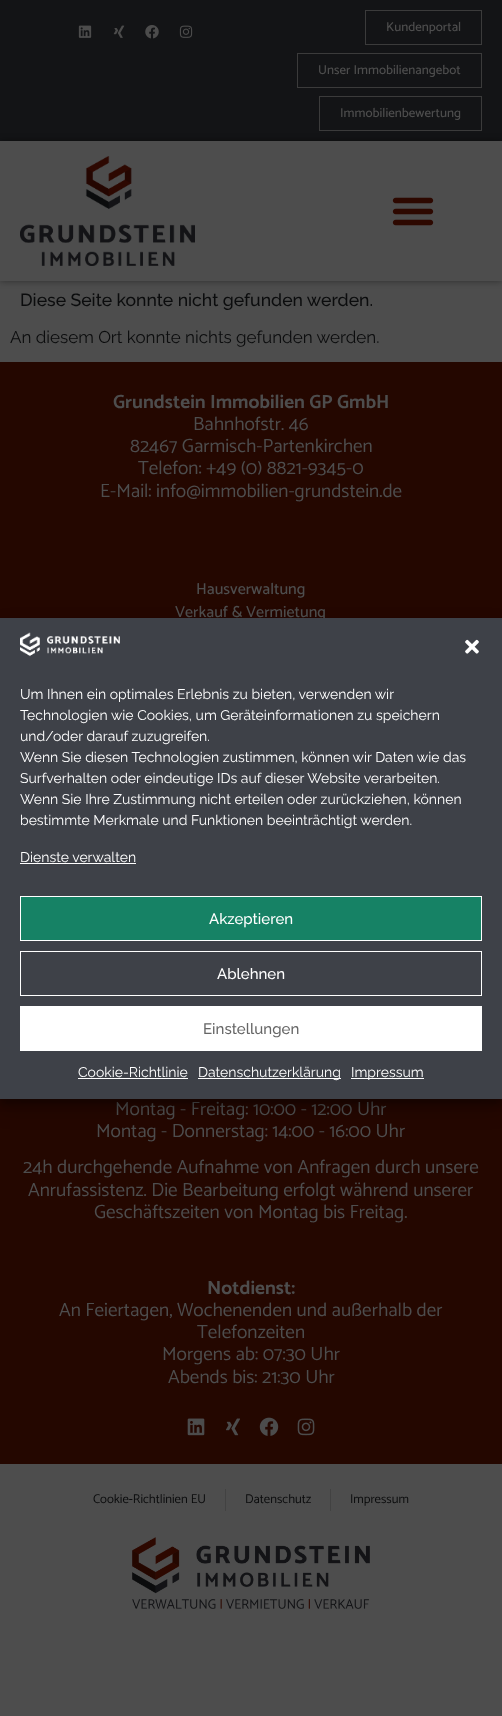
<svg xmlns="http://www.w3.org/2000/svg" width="502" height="1716">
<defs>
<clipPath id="clip1"><path d="M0 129h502v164h-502zm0 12h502v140h-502z" clip-rule="evenodd"/></clipPath>
</defs>
<rect width="100%" height="100%" fill="#4d4d4d"/>
<rect width="502" height="141" fill="#131416"/>
<image x="78" y="25" width="14" height="13" href="media/1.png"/>
<image x="113" y="25" width="12" height="13" href="media/2.png"/>
<image x="145" y="25" width="14" height="14" href="media/3.png"/>
<image x="179" y="25" width="14" height="13" href="media/4.png"/>
<rect x="365.5" y="10.5" width="116" height="34" fill="none" stroke="#3b3b3b"/>
<text x="386" y="31" style="font-family:Catamaran;font-size:13px;font-weight:500;fill:#4d4d4d">Kundenportal</text>
<rect x="297.5" y="53.5" width="184" height="34" fill="none" stroke="#3b3b3b"/>
<text x="318" y="74" style="font-family:Catamaran;font-size:13px;font-weight:500;fill:#4d4d4d">Unser Immobilienangebot</text>
<rect x="319.5" y="96.5" width="162" height="34" fill="none" stroke="#3b3b3b"/>
<text x="340" y="117" style="font-family:Catamaran;font-size:13px;font-weight:500;fill:#4d4d4d">Immobilienbewertung</text>
<g clip-path="url(#clip1)">
<rect y="141" width="502" height="140" fill="#00000069" filter="blur(3.5px)"/>
</g>
<image x="20" y="156" width="175" height="110" href="media/5.png"/>
<image x="392" y="197" width="42" height="29" href="media/6.png"/>
<text x="20" y="306" style="font-family:Raleway;font-size:17.6px;font-weight:500;fill:#0b0c0d">Diese Seite konnte nicht gefunden werden.</text>
<text x="10" y="343" style="font-family:Raleway;font-size:17px;fill:#0b0c0d">An diesem Ort konnte nichts gefunden werden.</text>
<rect y="362" width="502" height="256" fill="#240700"/>
<text x="113" y="408" style="font-family:Catamaran;font-size:19.2px;font-weight:bold;fill:#4d4d4d">Grundstein Immobilien GP GmbH</text>
<text x="193" y="430" style="font-family:Catamaran;font-size:19.2px;fill:#4d4d4d">Bahnhofstr. 46</text>
<text x="130" y="452" style="font-family:Catamaran;font-size:19.2px;fill:#4d4d4d">82467 Garmisch-Partenkirchen</text>
<text x="138" y="474" style="font-family:Catamaran;font-size:19.2px;fill:#4d4d4d">Telefon: +49 (0) 8821-9345-0</text>
<text x="100" y="497" style="font-family:Catamaran;font-size:19.2px;fill:#4d4d4d">E-Mail: info@immobilien-grundstein.de</text>
<text x="196" y="594" style="font-family:Catamaran;font-size:16px;font-weight:500;fill:#4d4d4d">Hausverwaltung</text>
<text x="175" y="617" style="font-family:Catamaran;font-size:16px;font-weight:500;fill:#4d4d4d">Verkauf &amp; Vermietung</text>
<rect y="1099" width="502" height="365" fill="#240700"/>
<text x="115" y="1115" style="font-family:Catamaran;font-size:19.2px;fill:#4d4d4d">Montag - Freitag: 10:00 - 12:00 Uhr</text>
<text x="96" y="1137" style="font-family:Catamaran;font-size:19.2px;fill:#4d4d4d">Montag - Donnerstag: 14:00 - 16:00 Uhr</text>
<text x="23" y="1173" style="font-family:Catamaran;font-size:19.2px;fill:#4d4d4d">24h durchgehende Aufnahme von Anfragen durch unsere</text>
<text x="28" y="1196" style="font-family:Catamaran;font-size:19.2px;fill:#4d4d4d">Anrufassistenz. Die Bearbeitung erfolgt während unserer</text>
<text x="94" y="1218" style="font-family:Catamaran;font-size:19.2px;fill:#4d4d4d">Geschäftszeiten von Montag bis Freitag.</text>
<text x="207" y="1294" style="font-family:Catamaran;font-size:19.2px;font-weight:bold;fill:#4d4d4d">Notdienst:</text>
<text x="59" y="1316" style="font-family:Catamaran;font-size:19.2px;fill:#4d4d4d">An Feiertagen, Wochenenden und außerhalb der</text>
<text x="197" y="1338" style="font-family:Catamaran;font-size:19.2px;fill:#4d4d4d">Telefonzeiten</text>
<text x="162" y="1360" style="font-family:Catamaran;font-size:19.2px;fill:#4d4d4d">Morgens ab: 07:30 Uhr</text>
<text x="168" y="1383" style="font-family:Catamaran;font-size:19.2px;fill:#4d4d4d">Abends bis: 21:30 Uhr</text>
<image x="187" y="1418" width="18" height="18" href="media/7.png"/>
<image x="225" y="1418" width="15" height="18" href="media/8.png"/>
<image x="259" y="1417" width="20" height="19" href="media/9.png"/>
<image x="297" y="1418" width="18" height="18" href="media/10.png"/>
<text x="93" y="1503" style="font-family:Catamaran;font-size:12.75px;fill:#0b0c0d">Cookie-Richtlinien EU</text>
<rect x="225" y="1489" width="1" height="22" fill="#424242"/>
<text x="245" y="1503" style="font-family:Catamaran;font-size:12.75px;fill:#0b0c0d">Datenschutz</text>
<rect x="330" y="1489" width="1" height="22" fill="#424242"/>
<text x="350" y="1503" style="font-family:Catamaran;font-size:12.75px;fill:#0b0c0d">Impressum</text>
<image x="132" y="1537" width="238" height="72" href="media/11.png"/>
<rect y="624" width="502" height="481" fill="#0000003b" filter="blur(3px)"/>
<rect y="628" width="502" height="481" fill="#00000030" filter="blur(10px)"/>
<rect y="618" width="502" height="481" fill="#3e4148"/>
<image x="20" y="632" width="100" height="25" href="media/12.png"/>
<image x="465" y="639" width="14" height="15" href="media/13.png"/>
<text x="20" y="699" style="font-family:Raleway;font-size:14px;fill:#fff">Um Ihnen ein optimales Erlebnis zu bieten, verwenden wir</text>
<text x="20" y="720" style="font-family:Raleway;font-size:14px;fill:#fff">Technologien wie Cookies, um Geräteinformationen zu speichern</text>
<text x="20" y="741" style="font-family:Raleway;font-size:14px;fill:#fff">und/oder darauf zuzugreifen.</text>
<text x="20" y="762" style="font-family:Raleway;font-size:14px;fill:#fff">Wenn Sie diesen Technologien zustimmen, können wir Daten wie das</text>
<text x="20" y="783" style="font-family:Raleway;font-size:14px;fill:#fff">Surfverhalten oder eindeutige IDs auf dieser Website verarbeiten.</text>
<text x="20" y="804" style="font-family:Raleway;font-size:14px;fill:#fff">Wenn Sie Ihre Zustimmung nicht erteilen oder zurückziehen, können</text>
<text x="20" y="825" style="font-family:Raleway;font-size:14px;fill:#fff">bestimmte Merkmale und Funktionen beeinträchtigt werden.</text>
<text x="20" y="862" style="font-family:Raleway;font-size:14px;fill:#fff">Dienste verwalten</text>
<rect x="20" y="863" width="116" height="1" fill="#fff"/>
<rect x="20.5" y="896.5" width="461" height="44" fill="#168265" stroke="#fff"/>
<text x="209" y="924" style="font-family:Raleway;font-size:15px;font-weight:500;fill:#fff">Akzeptieren</text>
<rect x="20.5" y="951.5" width="461" height="44" fill="none" stroke="#fff"/>
<text x="217" y="979" style="font-family:Raleway;font-size:15px;font-weight:500;fill:#fff">Ablehnen</text>
<rect x="20" y="1006" width="462" height="45" fill="#fff"/>
<text x="203" y="1034" style="font-family:Raleway;font-size:15px;font-weight:500;fill:#666">Einstellungen</text>
<text x="78" y="1077" style="font-family:Raleway;font-size:14px;fill:#fff">Cookie-Richtlinie</text>
<rect x="78" y="1078" width="110" height="1" fill="#fff"/>
<rect x="198" y="1078" width="143" height="1" fill="#fff"/>
<text x="198" y="1077" style="font-family:Raleway;font-size:14px;fill:#fff">Datenschutzerklärung</text>
<rect x="351" y="1078" width="73" height="1" fill="#fff"/>
<text x="351" y="1077" style="font-family:Raleway;font-size:14px;fill:#fff">Impressum</text>
</svg>
